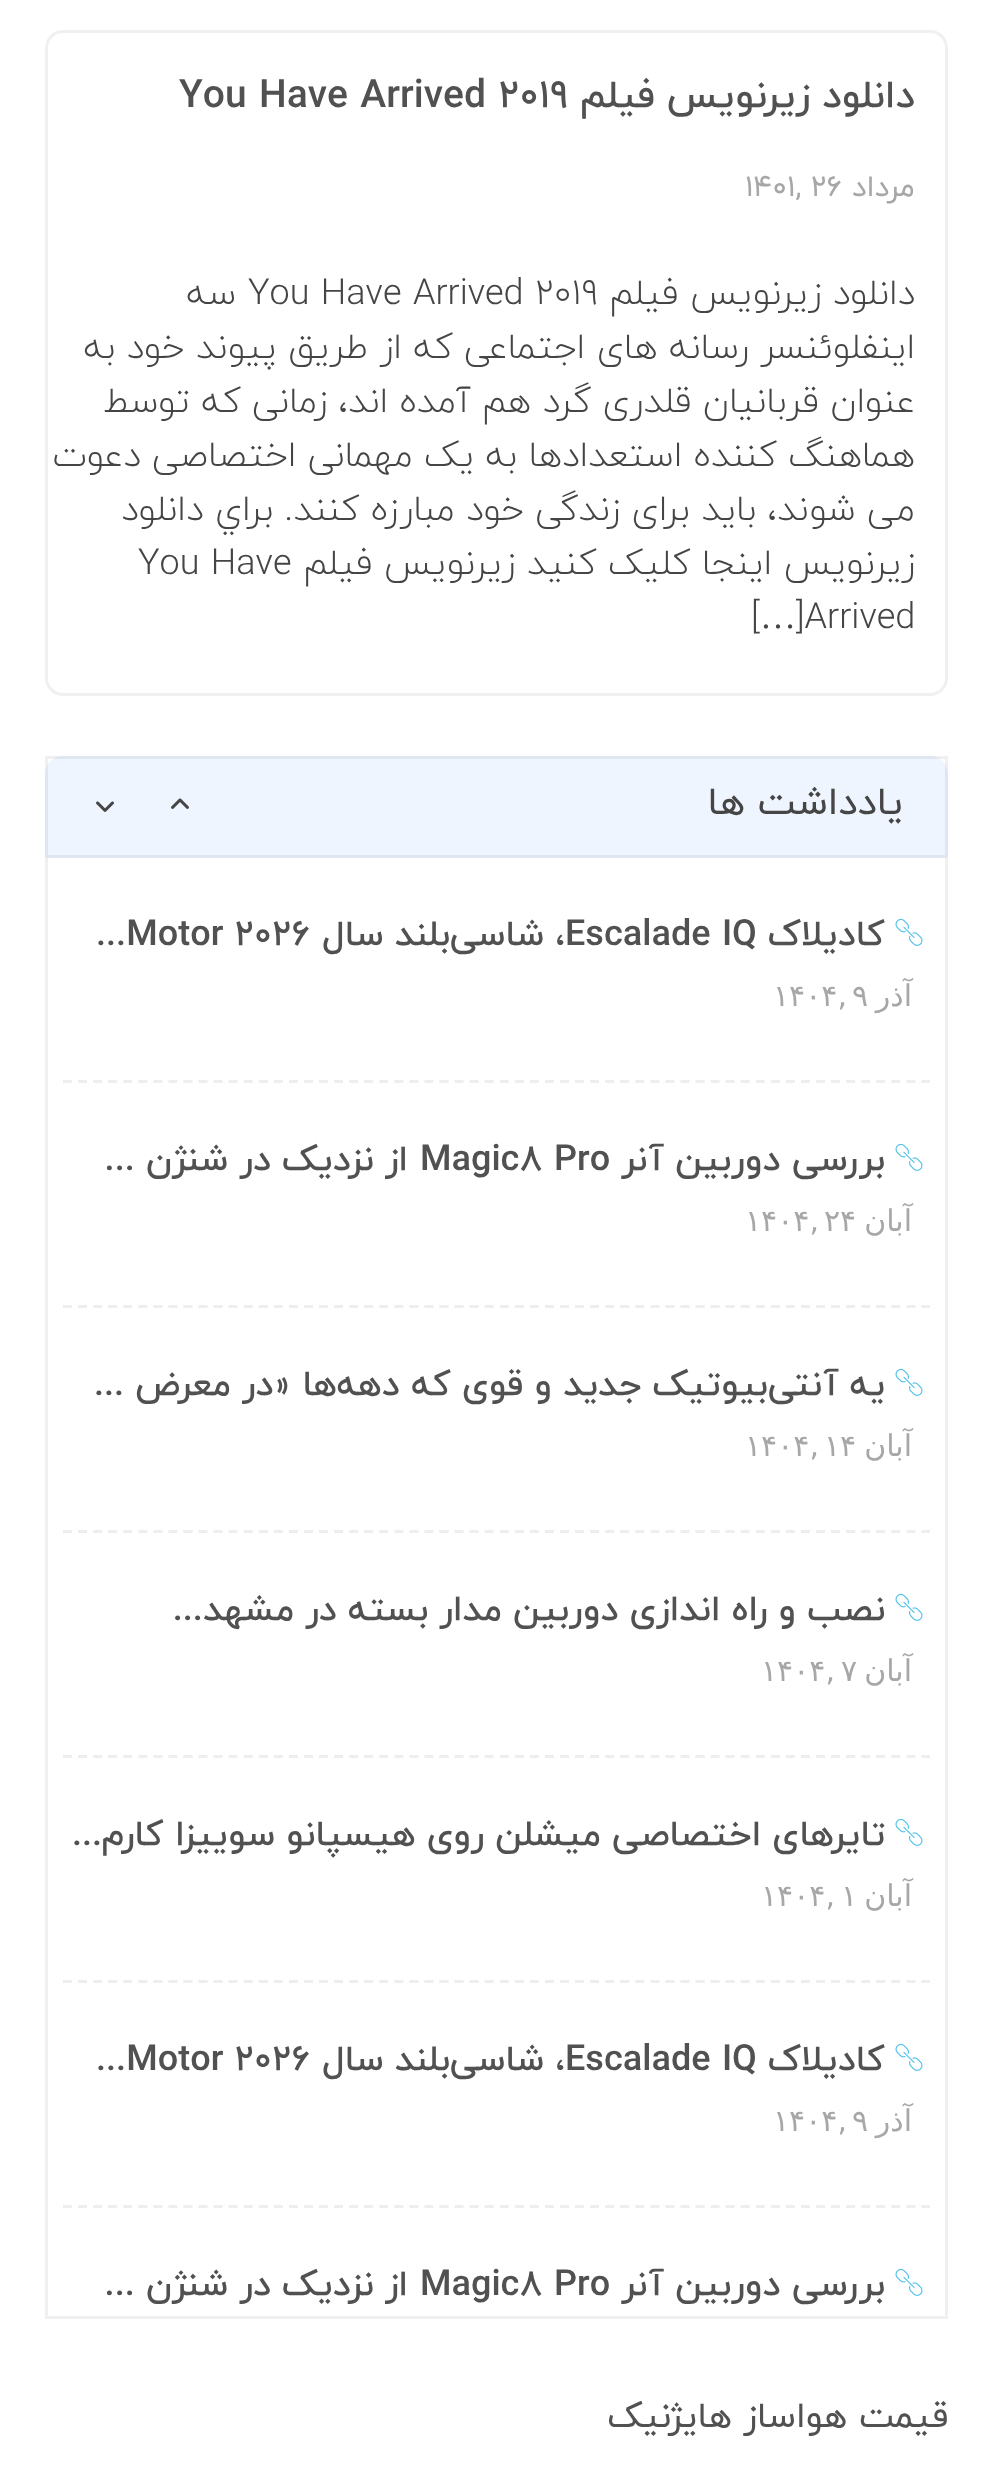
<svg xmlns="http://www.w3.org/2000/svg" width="993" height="2477">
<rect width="100%" height="100%" fill="#fff"/>
<rect x="46.5" y="31.5" width="900" height="663" rx="16.5" fill="none" stroke="#f0f0f0" stroke-width="3"/>
<text x="915" y="107" style="font-family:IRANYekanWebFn;font-size:39px;font-weight:500;direction:rtl;fill:#515151">دانلود زیرنویس فیلم</text>
<text x="179" y="107" style="font-family:IRANYekanWebFn;font-size:39px;font-weight:500;fill:#515151">You Have Arrived 2019</text>
<text x="915" y="196" style="font-family:IRANYekanWebFn;font-size:30px;direction:rtl;fill:#a7a7a7">مرداد</text>
<text x="745" y="196" style="font-family:IRANYekanWebFn;font-size:30px;fill:#a7a7a7">۱۴۰۱, ۲۶</text>
<text x="915" y="304" style="font-family:IRANYekanWebFn;font-size:36px;font-weight:300;direction:rtl;fill:#464545">دانلود زیرنویس فیلم</text>
<text x="248" y="304" style="font-family:IRANYekanWebFn;font-size:36px;font-weight:300;fill:#464545">You Have Arrived 2019</text>
<text x="236" y="304" style="font-family:IRANYekanWebFn;font-size:36px;font-weight:300;direction:rtl;fill:#464545">سه</text>
<text x="915" y="358" style="font-family:IRANYekanWebFn;font-size:36px;font-weight:300;direction:rtl;fill:#464545">اینفلوئنسر رسانه های اجتماعی که از طریق پیوند خود به</text>
<text x="915" y="412" style="font-family:IRANYekanWebFn;font-size:36px;font-weight:300;direction:rtl;fill:#464545">عنوان قربانیان قلدری گرد هم آمده اند، زمانی که توسط</text>
<text x="915" y="466" style="font-family:IRANYekanWebFn;font-size:36px;font-weight:300;direction:rtl;fill:#464545">هماهنگ کننده استعدادها به یک مهمانی اختصاصی دعوت</text>
<text x="915" y="520" style="font-family:IRANYekanWebFn;font-size:36px;font-weight:300;direction:rtl;fill:#464545">می شوند، باید برای زندگی خود مبارزه کنند. براي دانلود</text>
<text x="915" y="574" style="font-family:IRANYekanWebFn;font-size:36px;font-weight:300;direction:rtl;fill:#464545">زيرنويس اينجا کليک کنيد زیرنویس فیلم</text>
<text x="138" y="574" style="font-family:IRANYekanWebFn;font-size:36px;font-weight:300;fill:#464545">You Have</text>
<text x="796" y="628" style="font-family:IRANYekanWebFn;font-size:36px;font-weight:300;fill:#464545">]Arrived</text>
<text x="760" y="628" style="font-family:Liberation Serif;font-size:36px;fill:#464545">…</text>
<text x="751" y="628" style="font-family:IRANYekanWebFn;font-size:36px;font-weight:300;fill:#464545">[</text>
<path d="M63 756h867c10 0 18 8 18 18v84h-903v-84c0-10 8-18 18-18z" fill="#eff5ff"/>
<rect x="46.5" y="757.5" width="900" height="99" fill="none" stroke="#0000000f" stroke-width="3"/>
<text x="903" y="814" style="font-family:IRANYekanWebFn;font-size:39px;direction:rtl;fill:#464545">یادداشت ها</text>
<path d="M948 858v1461l-3-3v-1458z" fill="#f0f0f0"/>
<path d="M948 2319h-903l3-3h897z" fill="#0000000f"/>
<path d="M45 2319v-1461h3v1458z" fill="#0000000f"/>
<image x="171" y="798" width="18" height="11" href="media/1.png"/>
<image x="96" y="801" width="18" height="11" href="media/2.png"/>
<path d="M63 1081.5h867" fill="none" stroke="#eee" stroke-width="3" stroke-dasharray="9 6.06"/>
<image x="895" y="918" width="28" height="28" href="media/3.png"/>
<text x="885" y="945" style="font-family:IRANYekanWebFn;font-size:36px;font-weight:500;direction:rtl;fill:#515151">کادیلاک</text>
<text x="565" y="945" style="font-family:IRANYekanWebFn;font-size:36px;font-weight:500;fill:#515151">Escalade IQ</text>
<text x="565" y="945" style="font-family:IRANYekanWebFn;font-size:36px;font-weight:500;direction:rtl;fill:#515151">، شاسی‌بلند سال</text>
<text x="96" y="945" style="font-family:IRANYekanWebFn;font-size:36px;font-weight:500;fill:#515151">...Motor ۲۰۲۶</text>
<text x="912" y="1006" style="font-family:DejaVu Sans;font-size:30px;direction:rtl;fill:#a7a7a7">آذر</text>
<text x="852" y="1006" style="font-family:DejaVu Sans;font-size:30px;fill:#a7a7a7">۹</text>
<text x="773" y="1006" style="font-family:DejaVu Sans;font-size:30px;fill:#a7a7a7">۱۴۰۴,</text>
<path d="M63 1306.5h867" fill="none" stroke="#eee" stroke-width="3" stroke-dasharray="9 6.06"/>
<image x="895" y="1143" width="28" height="28" href="media/3.png"/>
<text x="885" y="1170" style="font-family:IRANYekanWebFn;font-size:36px;font-weight:500;direction:rtl;fill:#515151">بررسی دوربین آنر</text>
<text x="420" y="1170" style="font-family:IRANYekanWebFn;font-size:36px;font-weight:500;fill:#515151">Magic8 Pro</text>
<text x="408" y="1170" style="font-family:IRANYekanWebFn;font-size:36px;font-weight:500;direction:rtl;fill:#515151">از نزدیک در شنژن ...</text>
<text x="912" y="1231" style="font-family:DejaVu Sans;font-size:30px;direction:rtl;fill:#a7a7a7">آبان</text>
<text x="824" y="1231" style="font-family:DejaVu Sans;font-size:30px;fill:#a7a7a7">۲۴</text>
<text x="745" y="1231" style="font-family:DejaVu Sans;font-size:30px;fill:#a7a7a7">۱۴۰۴,</text>
<path d="M63 1531.5h867" fill="none" stroke="#eee" stroke-width="3" stroke-dasharray="9 6.06"/>
<image x="895" y="1368" width="28" height="28" href="media/3.png"/>
<text x="885" y="1395" style="font-family:IRANYekanWebFn;font-size:36px;font-weight:500;direction:rtl;fill:#515151">یه آنتی‌بیوتیک جدید و قوی که دهه‌ها «در معرض ...</text>
<text x="912" y="1456" style="font-family:DejaVu Sans;font-size:30px;direction:rtl;fill:#a7a7a7">آبان</text>
<text x="824" y="1456" style="font-family:DejaVu Sans;font-size:30px;fill:#a7a7a7">۱۴</text>
<text x="745" y="1456" style="font-family:DejaVu Sans;font-size:30px;fill:#a7a7a7">۱۴۰۴,</text>
<path d="M63 1756.5h867" fill="none" stroke="#eee" stroke-width="3" stroke-dasharray="9 6.06"/>
<image x="895" y="1593" width="28" height="28" href="media/3.png"/>
<text x="885" y="1620" style="font-family:IRANYekanWebFn;font-size:36px;font-weight:500;direction:rtl;fill:#515151">نصب و راه اندازی دوربین مدار بسته در مشهد...</text>
<text x="912" y="1681" style="font-family:DejaVu Sans;font-size:30px;direction:rtl;fill:#a7a7a7">آبان</text>
<text x="841" y="1681" style="font-family:DejaVu Sans;font-size:30px;fill:#a7a7a7">۷</text>
<text x="761" y="1681" style="font-family:DejaVu Sans;font-size:30px;fill:#a7a7a7">۱۴۰۴,</text>
<path d="M63 1981.5h867" fill="none" stroke="#eee" stroke-width="3" stroke-dasharray="9 6.06"/>
<image x="895" y="1818" width="28" height="28" href="media/3.png"/>
<text x="885" y="1845" style="font-family:IRANYekanWebFn;font-size:36px;font-weight:500;direction:rtl;fill:#515151">تایرهای اختصاصی میشلن روی هیسپانو سوییزا کارم...</text>
<text x="912" y="1906" style="font-family:DejaVu Sans;font-size:30px;direction:rtl;fill:#a7a7a7">آبان</text>
<text x="841" y="1906" style="font-family:DejaVu Sans;font-size:30px;fill:#a7a7a7">۱</text>
<text x="761" y="1906" style="font-family:DejaVu Sans;font-size:30px;fill:#a7a7a7">۱۴۰۴,</text>
<path d="M63 2206.5h867" fill="none" stroke="#eee" stroke-width="3" stroke-dasharray="9 6.06"/>
<image x="895" y="2043" width="28" height="28" href="media/3.png"/>
<text x="885" y="2070" style="font-family:IRANYekanWebFn;font-size:36px;font-weight:500;direction:rtl;fill:#515151">کادیلاک</text>
<text x="565" y="2070" style="font-family:IRANYekanWebFn;font-size:36px;font-weight:500;fill:#515151">Escalade IQ</text>
<text x="565" y="2070" style="font-family:IRANYekanWebFn;font-size:36px;font-weight:500;direction:rtl;fill:#515151">، شاسی‌بلند سال</text>
<text x="96" y="2070" style="font-family:IRANYekanWebFn;font-size:36px;font-weight:500;fill:#515151">...Motor ۲۰۲۶</text>
<text x="912" y="2131" style="font-family:DejaVu Sans;font-size:30px;direction:rtl;fill:#a7a7a7">آذر</text>
<text x="852" y="2131" style="font-family:DejaVu Sans;font-size:30px;fill:#a7a7a7">۹</text>
<text x="773" y="2131" style="font-family:DejaVu Sans;font-size:30px;fill:#a7a7a7">۱۴۰۴,</text>
<image x="895" y="2268" width="28" height="28" href="media/3.png"/>
<text x="885" y="2295" style="font-family:IRANYekanWebFn;font-size:36px;font-weight:500;direction:rtl;fill:#515151">بررسی دوربین آنر</text>
<text x="420" y="2295" style="font-family:IRANYekanWebFn;font-size:36px;font-weight:500;fill:#515151">Magic8 Pro</text>
<text x="408" y="2295" style="font-family:IRANYekanWebFn;font-size:36px;font-weight:500;direction:rtl;fill:#515151">از نزدیک در شنژن ...</text>
<text x="948" y="2427" style="font-family:IRANYekanWebFn;font-size:36px;direction:rtl;fill:#515151">قیمت هواساز هایژنیک</text>
</svg>
